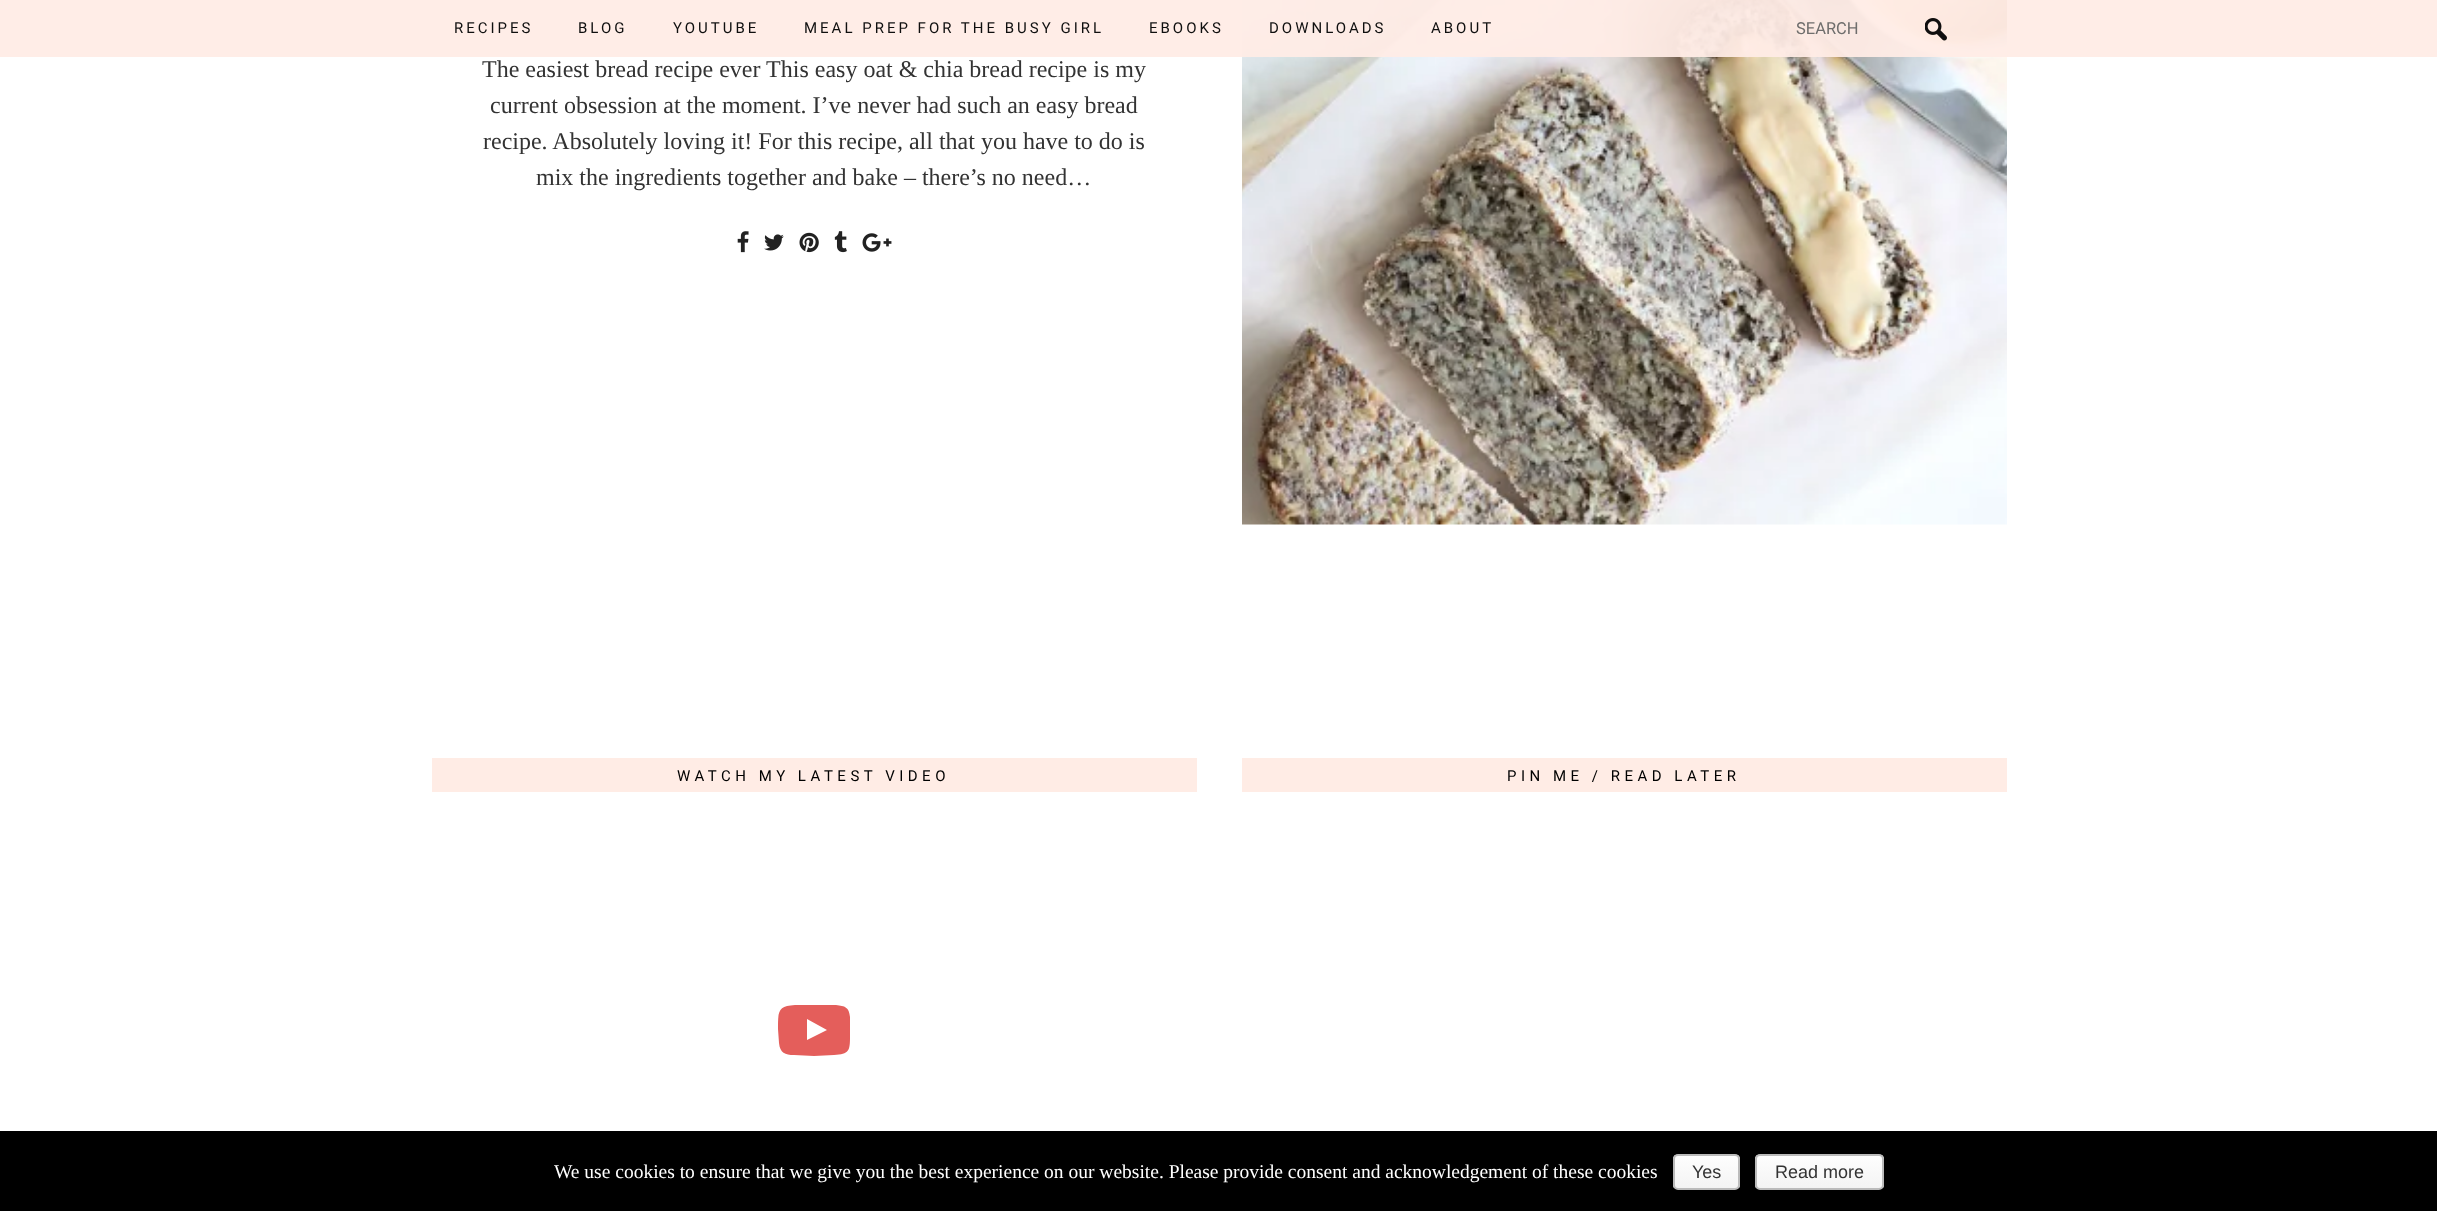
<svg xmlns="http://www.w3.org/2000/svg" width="2437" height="1211">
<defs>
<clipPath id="clip1"><rect x="1673" y="1154" width="67" height="36" rx="5"/></clipPath>
<linearGradient id="g1" gradientUnits="userSpaceOnUse" x1="1706" y1="1155" x2="1706" y2="1188"><stop offset="0" stop-color="#fefefe"/><stop offset="1" stop-color="#f4f4f4"/></linearGradient>
<clipPath id="clip2"><rect x="1755" y="1154" width="129" height="36" rx="5"/></clipPath>
<linearGradient id="g2" gradientUnits="userSpaceOnUse" x1="1820" y1="1155" x2="1820" y2="1188"><stop offset="0" stop-color="#fefefe"/><stop offset="1" stop-color="#f4f4f4"/></linearGradient>
</defs>
<rect width="100%" height="100%" fill="#fff"/>
<image x="1242" y="0" width="765" height="525" href="media/7.png"/>
<rect width="2437" height="57" fill="#ffece5f0"/>
<text x="454" y="33" style="font-family:Roboto;font-size:15px;letter-spacing:3px;fill:#0f0f0f">RECIPES</text>
<text x="578" y="33" style="font-family:Roboto;font-size:15px;letter-spacing:3px;fill:#0f0f0f">BLOG</text>
<text x="673" y="33" style="font-family:Roboto;font-size:15px;letter-spacing:3px;fill:#0f0f0f">YOUTUBE</text>
<text x="804" y="33" style="font-family:Roboto;font-size:15px;letter-spacing:3px;fill:#0f0f0f">MEAL PREP FOR THE BUSY GIRL</text>
<text x="1149" y="33" style="font-family:Roboto;font-size:15px;letter-spacing:3px;fill:#0f0f0f">EBOOKS</text>
<text x="1269" y="33" style="font-family:Roboto;font-size:15px;letter-spacing:3px;fill:#0f0f0f">DOWNLOADS</text>
<text x="1431" y="33" style="font-family:Roboto;font-size:15px;letter-spacing:3px;fill:#0f0f0f">ABOUT</text>
<image x="1925" y="18" width="22" height="23" href="media/1.png"/>
<text x="1796" y="34" style="font-family:Roboto;font-size:16.5px;fill:#6f6e6d">SEARCH</text>
<text x="482" y="77" style="font-family:Liberation Serif;font-size:24px;fill:#333">The easiest bread recipe ever This easy oat &amp; chia bread recipe is my</text>
<text x="490" y="113" style="font-family:Liberation Serif;font-size:24px;fill:#333">current obsession at the moment. I’ve never had such an easy bread</text>
<text x="483" y="149" style="font-family:Liberation Serif;font-size:24px;fill:#333">recipe. Absolutely loving it! For this recipe, all that you have to do is</text>
<text x="536" y="185" style="font-family:Liberation Serif;font-size:24px;fill:#333">mix the ingredients together and bake – there’s no need…</text>
<image x="737" y="231" width="12" height="22" href="media/2.png"/>
<image x="764" y="234" width="20" height="17" href="media/3.png"/>
<image x="799" y="232" width="20" height="21" href="media/4.png"/>
<image x="834" y="231" width="13" height="22" href="media/5.png"/>
<image x="862" y="233" width="30" height="19" href="media/6.png"/>
<rect x="432" y="758" width="765" height="34" fill="#ffece5"/>
<text x="677" y="781" style="font-family:Roboto;font-size:15px;letter-spacing:4.5px;fill:#000">WATCH MY LATEST VIDEO</text>
<path d="M807 1040l20-10l-20-11zm7-35h22c9 1 13 2 14 12v14c0 19 1 23-16 24l-20 1l-20-1c-9 0-14-2-15-12l-1-14c0-18 0-23 17-24z" fill="#e45e5b"/>
<rect x="1242" y="758" width="765" height="34" fill="#ffece5"/>
<text x="1507" y="781" style="font-family:Roboto;font-size:15px;letter-spacing:4.5px;fill:#000">PIN ME / READ LATER</text>
<rect y="1131" width="2437" height="80" fill="#000"/>
<text x="554" y="1178" style="font-family:Liberation Serif;font-size:19.5px;fill:#fff">We use cookies to ensure that we give you the best experience on our website. Please provide consent and acknowledgement of these cookies</text>
<g clip-path="url(#clip1)">
<rect x="1673" y="1155" width="67" height="33" fill="url(#g1)"/>
</g>
<rect x="1674" y="1155" width="65" height="34" rx="4" fill="none" stroke="#bbb" stroke-width="2"/>
<text x="1692" y="1178" style="font-family:Liberation Sans;font-size:18px;fill:#333">Yes</text>
<g clip-path="url(#clip2)">
<rect x="1755" y="1155" width="129" height="33" fill="url(#g2)"/>
</g>
<rect x="1756" y="1155" width="127" height="34" rx="4" fill="none" stroke="#bbb" stroke-width="2"/>
<text x="1775" y="1178" style="font-family:Liberation Sans;font-size:18px;fill:#333">Read more</text>
</svg>
